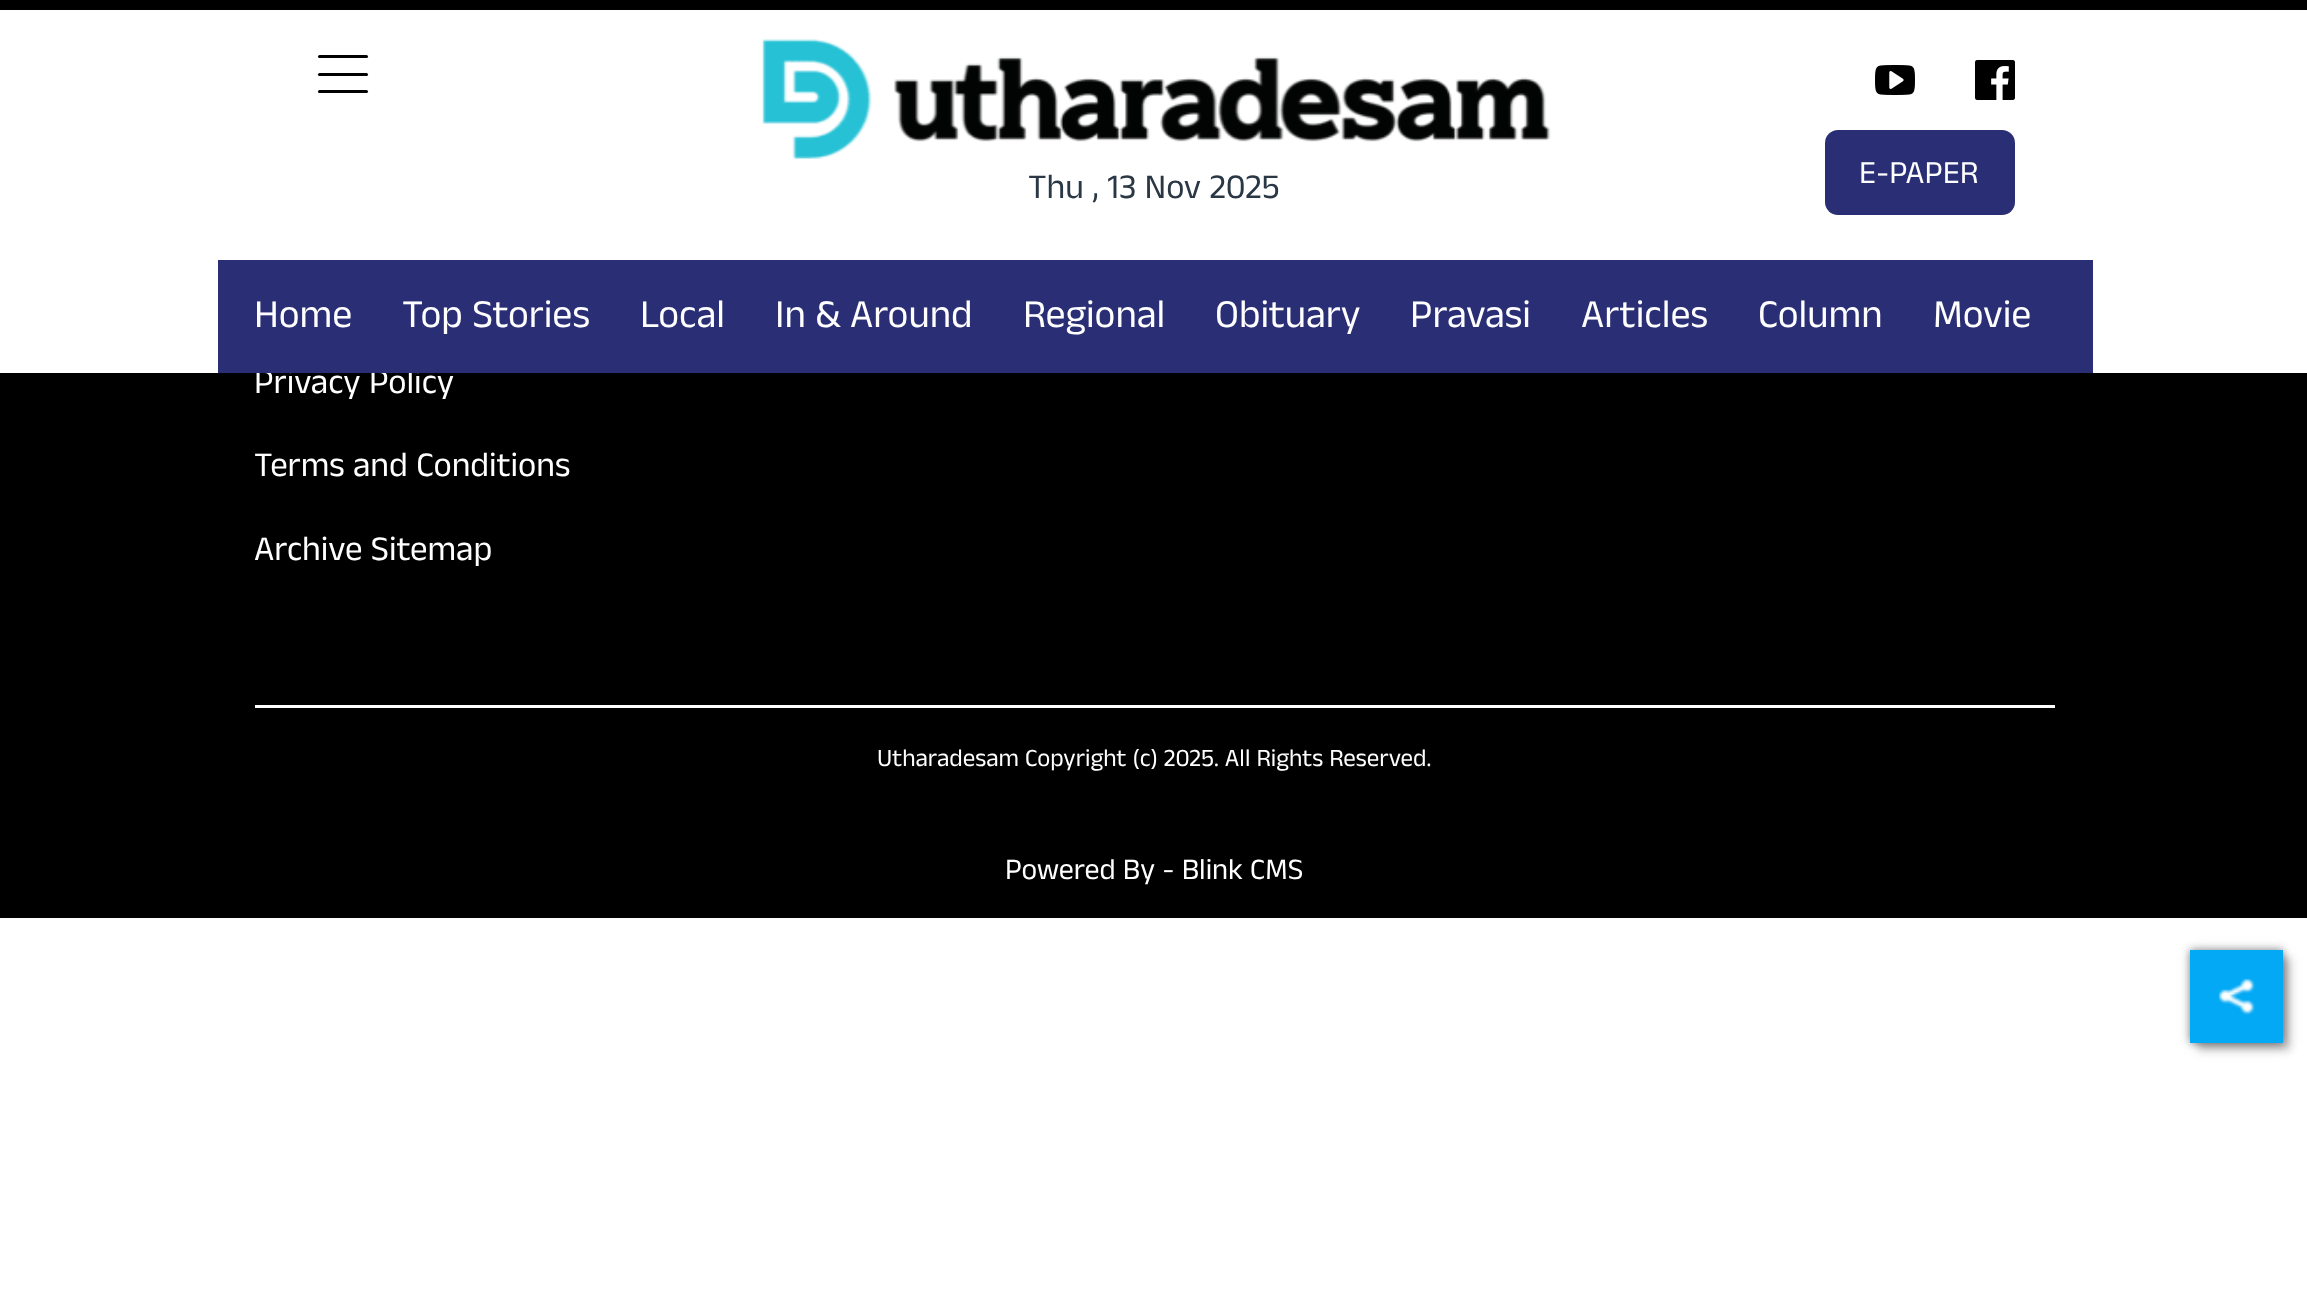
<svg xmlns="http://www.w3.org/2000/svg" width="2307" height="1291">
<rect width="100%" height="100%" fill="#fff"/>
<rect y="373" width="2307" height="545" fill="#000"/>
<rect y="3" width="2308" height="372" fill="#0000001f" filter="blur(6px)"/>
<rect x="5" y="13" width="2298" height="362" fill="#00000033" filter="blur(1px)"/>
<rect y="5" width="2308" height="373" fill="#00000024" filter="blur(2.5px)"/>
<rect y="10" width="2307" height="363" fill="#fff"/>
<rect width="2307" height="10" fill="#000"/>
<rect x="318" y="73" width="50" height="3" rx="1.5" fill="#000"/>
<rect x="318" y="55" width="50" height="3" rx="1.5" fill="#000"/>
<rect x="318" y="90" width="50" height="3" rx="1.5" fill="#000"/>
<image x="761" y="39" width="790" height="121" href="media/1.png"/>
<text x="1028" y="198" style="font-family:Anek Malayalam;font-size:35px;fill:#2a3744">Thu , 13 Nov 2025</text>
<image x="1875" y="65" width="40" height="30" href="media/2.png"/>
<image x="1975" y="60" width="40" height="40" href="media/3.png"/>
<rect x="1825" y="130" width="190" height="85" rx="13" fill="#2a2f75"/>
<text x="1859" y="183" style="font-family:Anek Malayalam;font-size:32.5px;fill:#fff">E-PAPER</text>
<text x="254" y="393" style="font-family:Anek Malayalam;font-size:35px;fill:#fff">Privacy Policy</text>
<rect x="218" y="260" width="1875" height="113" fill="#2a2e75"/>
<text x="254" y="327" style="font-family:Anek Malayalam;font-size:40px;fill:#fff">Home</text>
<text x="402" y="327" style="font-family:Anek Malayalam;font-size:40px;fill:#fff">Top Stories</text>
<text x="640" y="327" style="font-family:Anek Malayalam;font-size:40px;fill:#fff">Local</text>
<text x="775" y="327" style="font-family:Anek Malayalam;font-size:40px;fill:#fff">In &amp; Around</text>
<text x="1023" y="327" style="font-family:Anek Malayalam;font-size:40px;fill:#fff">Regional</text>
<text x="1215" y="327" style="font-family:Anek Malayalam;font-size:40px;fill:#fff">Obituary</text>
<text x="1410" y="327" style="font-family:Anek Malayalam;font-size:40px;fill:#fff">Pravasi</text>
<text x="1581" y="327" style="font-family:Anek Malayalam;font-size:40px;fill:#fff">Articles</text>
<text x="1758" y="327" style="font-family:Anek Malayalam;font-size:40px;fill:#fff">Column</text>
<text x="1933" y="327" style="font-family:Anek Malayalam;font-size:40px;fill:#fff">Movie</text>
<rect x="255" y="705" width="1800" height="3" fill="#fff"/>
<text x="254" y="476" style="font-family:Anek Malayalam;font-size:35px;fill:#fff">Terms and Conditions</text>
<text x="254" y="560" style="font-family:Anek Malayalam;font-size:35px;fill:#fff">Archive Sitemap</text>
<text x="877" y="766" style="font-family:Anek Malayalam;font-size:25px;fill:#fff">Utharadesam Copyright (c) 2025. All Rights Reserved.</text>
<text x="1005" y="879" style="font-family:Anek Malayalam;font-size:30px;fill:#fff">Powered By - Blink CMS</text>
<rect x="2195" y="955" width="88" height="88" fill="#0000000d" filter="blur(12.5px)"/>
<rect x="2198" y="958" width="92" height="92" fill="#00000040" filter="blur(4px)"/>
<rect x="2190" y="950" width="93" height="93" fill="#00000080" filter="blur(4px)"/>
<rect x="2190" y="950" width="93" height="93" fill="#03a9f4"/>
<image x="2218" y="978" width="37" height="37" href="media/4.png"/>
</svg>
